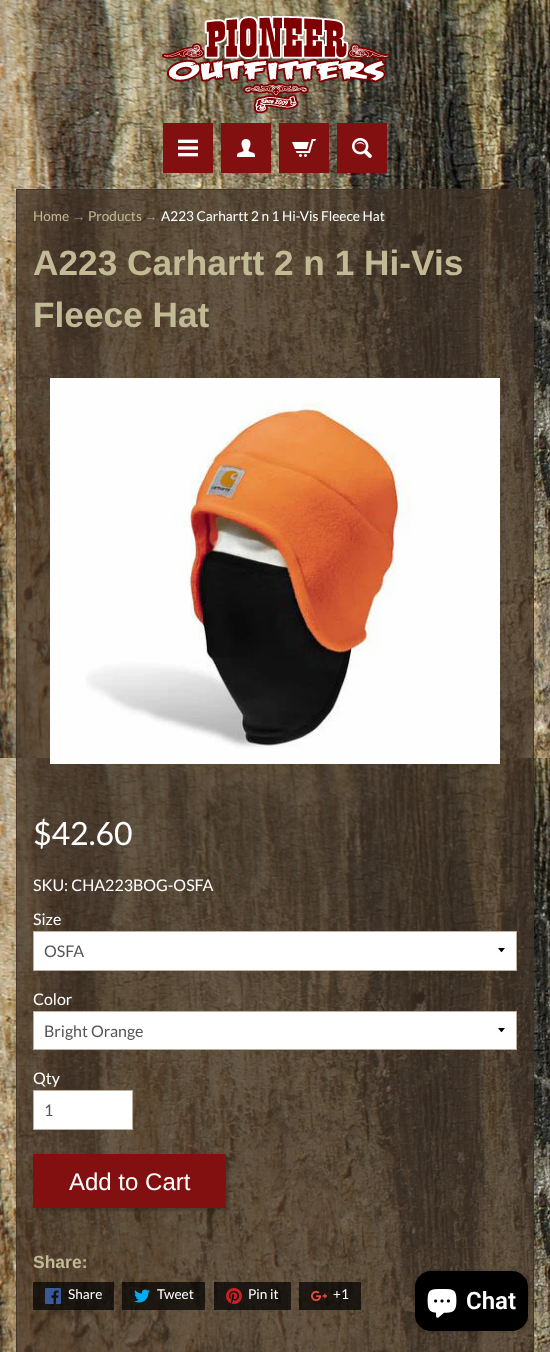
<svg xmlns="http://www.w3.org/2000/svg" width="550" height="1352">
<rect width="100%" height="100%" fill="#fff"/>
<image x="0" y="0" width="550" height="1352" href="media/1.png"/>
<image x="162" y="16" width="228" height="97" href="media/2.png"/>
<rect x="163" y="123" width="50" height="50" fill="#831010"/>
<image x="178" y="139" width="20" height="18" href="media/3.png"/>
<rect x="221" y="123" width="50" height="50" fill="#831010"/>
<image x="237" y="139" width="18" height="18" href="media/4.png"/>
<rect x="279" y="123" width="50" height="50" fill="#831010"/>
<image x="292" y="139" width="24" height="18" href="media/5.png"/>
<rect x="337" y="123" width="50" height="50" fill="#831010"/>
<image x="352" y="138" width="20" height="20" href="media/6.png"/>
<rect x="16" y="189" width="518" height="1163" fill="#403125bf"/>
<rect x="16.5" y="189.5" width="517" height="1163" fill="none" stroke="#403125b3"/>
<text x="33" y="221" style="font-family:Lato;font-size:13.6px;fill:#c2ba95">Home</text>
<text x="72" y="221" style="font-family:Liberation Sans;font-size:13.6px;fill:#9f9993">→</text>
<text x="88" y="221" style="font-family:Lato;font-size:13.6px;fill:#c2ba95">Products</text>
<text x="144" y="221" style="font-family:Liberation Sans;font-size:13.6px;fill:#aba49a">→</text>
<text x="161" y="221" style="font-family:Lato;font-size:13.6px;fill:#fff">A223 Carhartt 2 n 1 Hi-Vis Fleece Hat</text>
<text x="33" y="275" style="font-family:Liberation Sans;font-size:35.25px;font-weight:bold;fill:#c2ba95">A223 Carhartt 2 n 1 Hi-Vis</text>
<text x="33" y="327" style="font-family:Liberation Sans;font-size:35.25px;font-weight:bold;fill:#c2ba95">Fleece Hat</text>
<image x="50" y="378" width="450" height="386" href="media/7.png"/>
<text x="33" y="845" style="font-family:Lato;font-size:32px;fill:#fff">$42.60</text>
<text x="33" y="891" style="font-family:Lato;font-size:16px;fill:#fff">SKU: CHA223BOG-OSFA</text>
<text x="33" y="925" style="font-family:Lato;font-size:16px;fill:#fff">Size</text>
<rect x="34" y="932" width="482" height="38" fill="#fff"/>
<path d="M498 948c4.5 5.5 2.5 5.5 7 0z" fill="#000"/>
<rect x="33.5" y="931.5" width="483" height="39" fill="none" stroke="#bdaf9b"/>
<text x="44" y="957" style="font-family:Lato;font-size:16px;fill:#555">OSFA</text>
<text x="33" y="1005" style="font-family:Lato;font-size:16px;fill:#fff">Color</text>
<rect x="34" y="1012" width="482" height="37" fill="#fff"/>
<path d="M498 1028c4.5 5.5 2.5 5.5 7 0z" fill="#000"/>
<rect x="33.5" y="1011.5" width="483" height="38" fill="none" stroke="#bdaf9b"/>
<text x="44" y="1037" style="font-family:Lato;font-size:16px;fill:#555">Bright Orange</text>
<text x="33" y="1084" style="font-family:Lato;font-size:16px;fill:#fff">Qty</text>
<rect x="33.5" y="1090.5" width="99" height="39" fill="#fff" stroke="#bdaf9b"/>
<text x="44" y="1116" style="font-family:Lato;font-size:16px;fill:#555">1</text>
<rect x="36" y="1157" width="193" height="54" fill="#00000033" filter="blur(1px)"/>
<rect x="33" y="1154" width="193" height="54" fill="#831010"/>
<text x="69" y="1190" style="font-family:Liberation Sans;font-size:24px;fill:#fff">Add to Cart</text>
<text x="33" y="1268" style="font-family:Liberation Sans;font-size:17.5px;font-weight:bold;fill:#c2ba95">Share:</text>
<rect x="33" y="1282" width="81" height="28" fill="#000000b3"/>
<image x="45" y="1288" width="16" height="16" href="media/8.png"/>
<text x="68" y="1299" style="font-family:Lato;font-size:13.6px;fill:#fff">Share</text>
<rect x="122" y="1282" width="83" height="28" fill="#000000b3"/>
<image x="134" y="1289" width="16" height="14" href="media/9.png"/>
<text x="157" y="1299" style="font-family:Lato;font-size:13.6px;fill:#fff">Tweet</text>
<rect x="214" y="1282" width="77" height="28" fill="#000000b3"/>
<image x="226" y="1288" width="16" height="16" href="media/10.png"/>
<text x="248" y="1299" style="font-family:Lato;font-size:13.6px;fill:#fff">Pin it</text>
<rect x="299" y="1282" width="62" height="28" fill="#000000b3"/>
<image x="311" y="1290" width="16" height="12" href="media/11.png"/>
<text x="333" y="1299" style="font-family:Lato;font-size:13.6px;fill:#fff">+1</text>
<rect x="415" y="1271" width="113" height="60" rx="16" fill="#00000026" filter="blur(2.5px)"/>
<rect x="415" y="1271" width="113" height="60" rx="16" fill="#000"/>
<image x="427" y="1289" width="30" height="29" href="media/12.png"/>
<text x="466" y="1309" style="font-family:Roboto;font-size:24px;font-weight:600;fill:#fff">Chat</text>
</svg>
